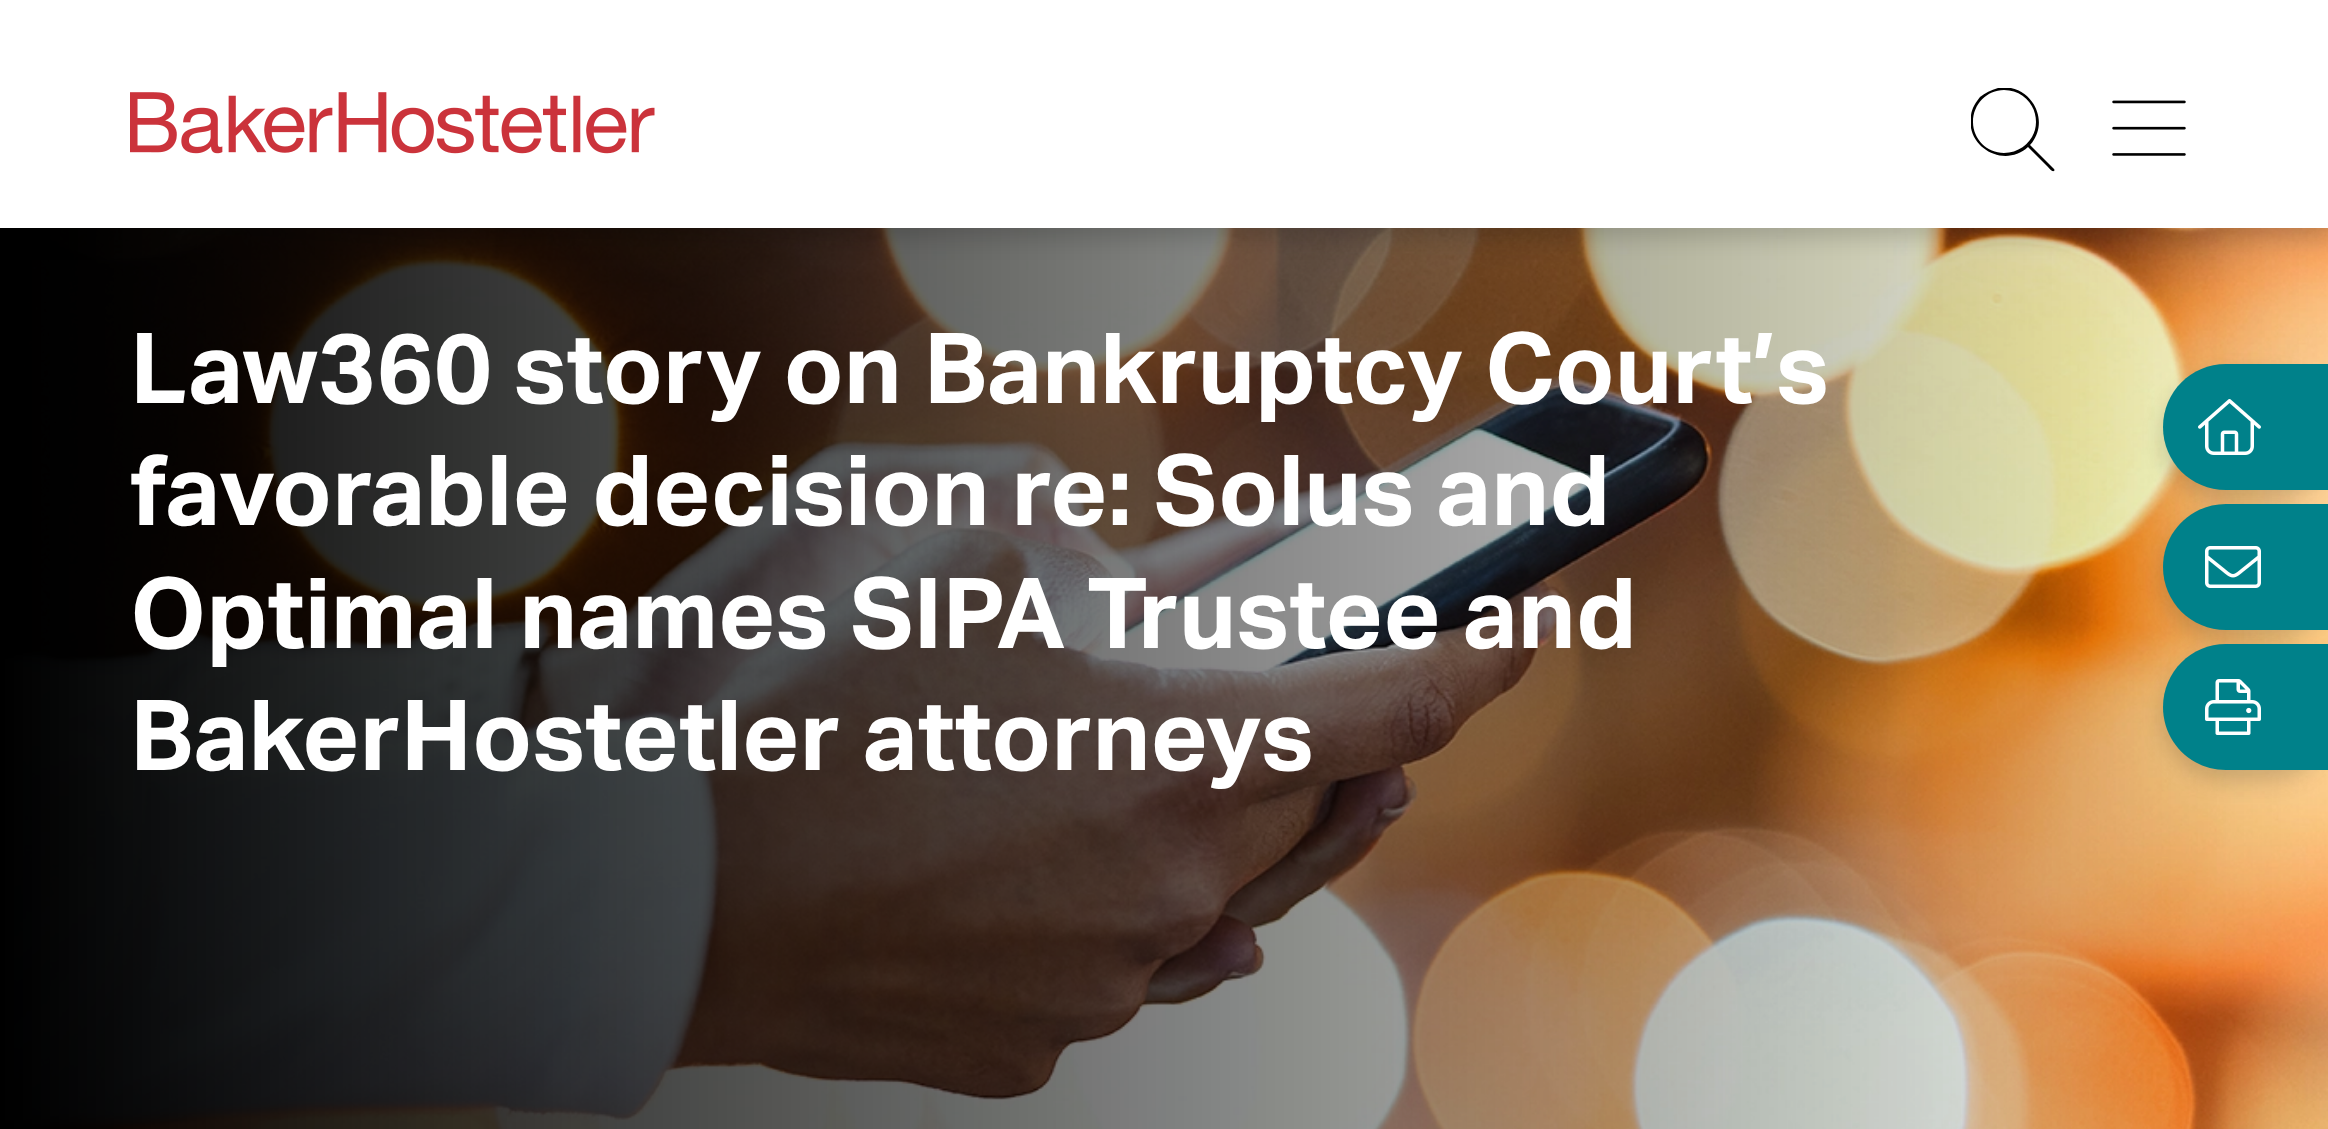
<svg xmlns="http://www.w3.org/2000/svg" width="2328" height="1129">
<defs>
<clipPath id="clip1"><rect x="1971" y="88" width="84" height="84"/></clipPath>
</defs>
<rect width="100%" height="100%" fill="#fff"/>
<image x="0" y="228" width="2328" height="901" href="media/3.png"/>
<rect y="11" width="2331" height="227" fill="#00000029" filter="blur(10.5px)"/>
<rect width="2328" height="228" fill="#fff"/>
<image x="130" y="92" width="525" height="62" href="media/1.png"/>
<g clip-path="url(#clip1)">
<path d="M2054 169l-24-24c22-24 0-63-32-57c-7 2-13 5-18 9c-4 5-8 11-9 18c-6 32 33 54 57 32l20 20c1 1 4 5 6 4c0 0 1-1 0-2zm-50-16c-17 0-31-14-31-31c0-18 14-32 31-32c18 0 32 14 32 32c0 17-14 31-32 31z" fill="#000"/>
</g>
<image x="2112" y="100" width="74" height="56" href="media/2.png"/>
<text x="130" y="403" style="font-family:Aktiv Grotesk;font-size:98px;font-weight:bold;fill:#fff">Law360 story on Bankruptcy Court’s</text>
<text x="130" y="525" style="font-family:Aktiv Grotesk;font-size:98px;font-weight:bold;fill:#fff">favorable decision re: Solus and</text>
<text x="130" y="648" style="font-family:Aktiv Grotesk;font-size:98px;font-weight:bold;fill:#fff">Optimal names SIPA Trustee and</text>
<text x="130" y="770" style="font-family:Aktiv Grotesk;font-size:98px;font-weight:bold;fill:#fff">BakerHostetler attorneys</text>
<rect x="2163" y="375" width="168" height="126" rx="63" fill="#00000029" filter="blur(10.5px)"/>
<path d="M2226 364h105v126h-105c-35 0-63-28-63-63c0-35 28-63 63-63z" fill="#00818a"/>
<image x="2198" y="399" width="63" height="56" href="media/4.png"/>
<rect x="2163" y="515" width="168" height="126" rx="63" fill="#00000029" filter="blur(10.5px)"/>
<path d="M2226 504h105v126h-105c-35 0-63-28-63-63c0-35 28-63 63-63z" fill="#00818a"/>
<image x="2205" y="546" width="56" height="42" href="media/5.png"/>
<rect x="2163" y="655" width="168" height="126" rx="63" fill="#00000029" filter="blur(10.5px)"/>
<path d="M2226 644h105v126h-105c-35 0-63-28-63-63c0-35 28-63 63-63z" fill="#00818a"/>
<image x="2205" y="679" width="56" height="56" href="media/6.png"/>
</svg>
